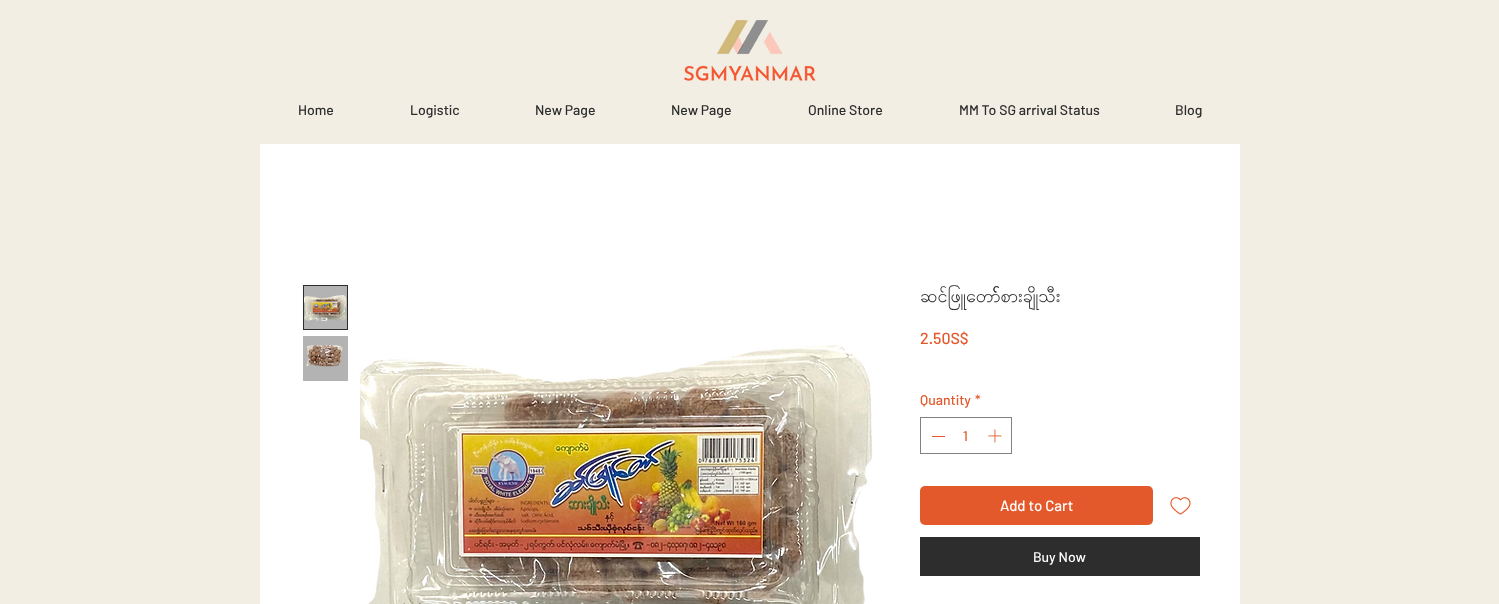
<svg xmlns="http://www.w3.org/2000/svg" width="1499" height="604">
<rect width="100%" height="100%" fill="#f2eee4"/>
<image x="684" y="20" width="132" height="61" href="media/1.png"/>
<text x="298" y="115" style="font-family:Barlow;font-size:14px;font-weight:500;fill:#2d2d2d">Home</text>
<text x="410" y="115" style="font-family:Barlow;font-size:14px;font-weight:500;fill:#2d2d2d">Logistic</text>
<text x="535" y="115" style="font-family:Barlow;font-size:14px;font-weight:500;fill:#2d2d2d">New Page</text>
<text x="671" y="115" style="font-family:Barlow;font-size:14px;font-weight:500;fill:#2d2d2d">New Page</text>
<text x="808" y="115" style="font-family:Barlow;font-size:14px;font-weight:500;fill:#2d2d2d">Online Store</text>
<text x="959" y="115" style="font-family:Barlow;font-size:14px;font-weight:500;fill:#2d2d2d">MM To SG arrival Status</text>
<text x="1175" y="115" style="font-family:Barlow;font-size:14px;font-weight:500;fill:#2d2d2d">Blog</text>
<rect x="260" y="144" width="980" height="460" fill="#fff"/>
<rect x="303.5" y="285.5" width="44" height="44" fill="#b3b3b3" stroke="#2d2d2d"/>
<image x="304" y="295" width="43" height="26" href="media/2.png"/>
<rect x="303" y="336" width="45" height="45" fill="#b3b3b3"/>
<image x="306" y="345" width="37" height="22" href="media/3.png"/>
<image x="360" y="345" width="513" height="259" href="media/4.png"/>
<text x="920" y="302" style="font-family:Padauk;font-size:18px;fill:#2d2d2d">ဆင်ဖြူတော််စားချိုသီး</text>
<text x="920" y="344" style="font-family:Barlow;font-size:16px;font-weight:500;fill:#e3592b">2.50S$</text>
<text x="920" y="405" style="font-family:Barlow;font-size:14px;font-weight:500;fill:#e3592b">Quantity</text>
<text x="975" y="405" style="font-family:Barlow;font-size:14px;font-weight:500;fill:#e3592b">*</text>
<rect x="920.5" y="417.5" width="91" height="36" fill="none" stroke="#818181"/>
<rect x="932" y="436" width="13" height="1" fill="#e3592b"/>
<text x="963" y="441" style="font-family:Barlow;font-size:14px;font-weight:500;fill:#e3592b">1</text>
<image x="988" y="429" width="14" height="14" href="media/5.png"/>
<rect x="920" y="486" width="233" height="39" rx="5" fill="#e3592b"/>
<text x="1000" y="511" style="font-family:Barlow;font-size:15px;font-weight:500;fill:#fff">Add to Cart</text>
<image x="1170" y="497" width="21" height="18" href="media/6.png"/>
<rect x="920" y="537" width="280" height="39" fill="#2d2d2d"/>
<text x="1033" y="562" style="font-family:Barlow;font-size:14px;font-weight:500;fill:#fff">Buy Now</text>
</svg>
